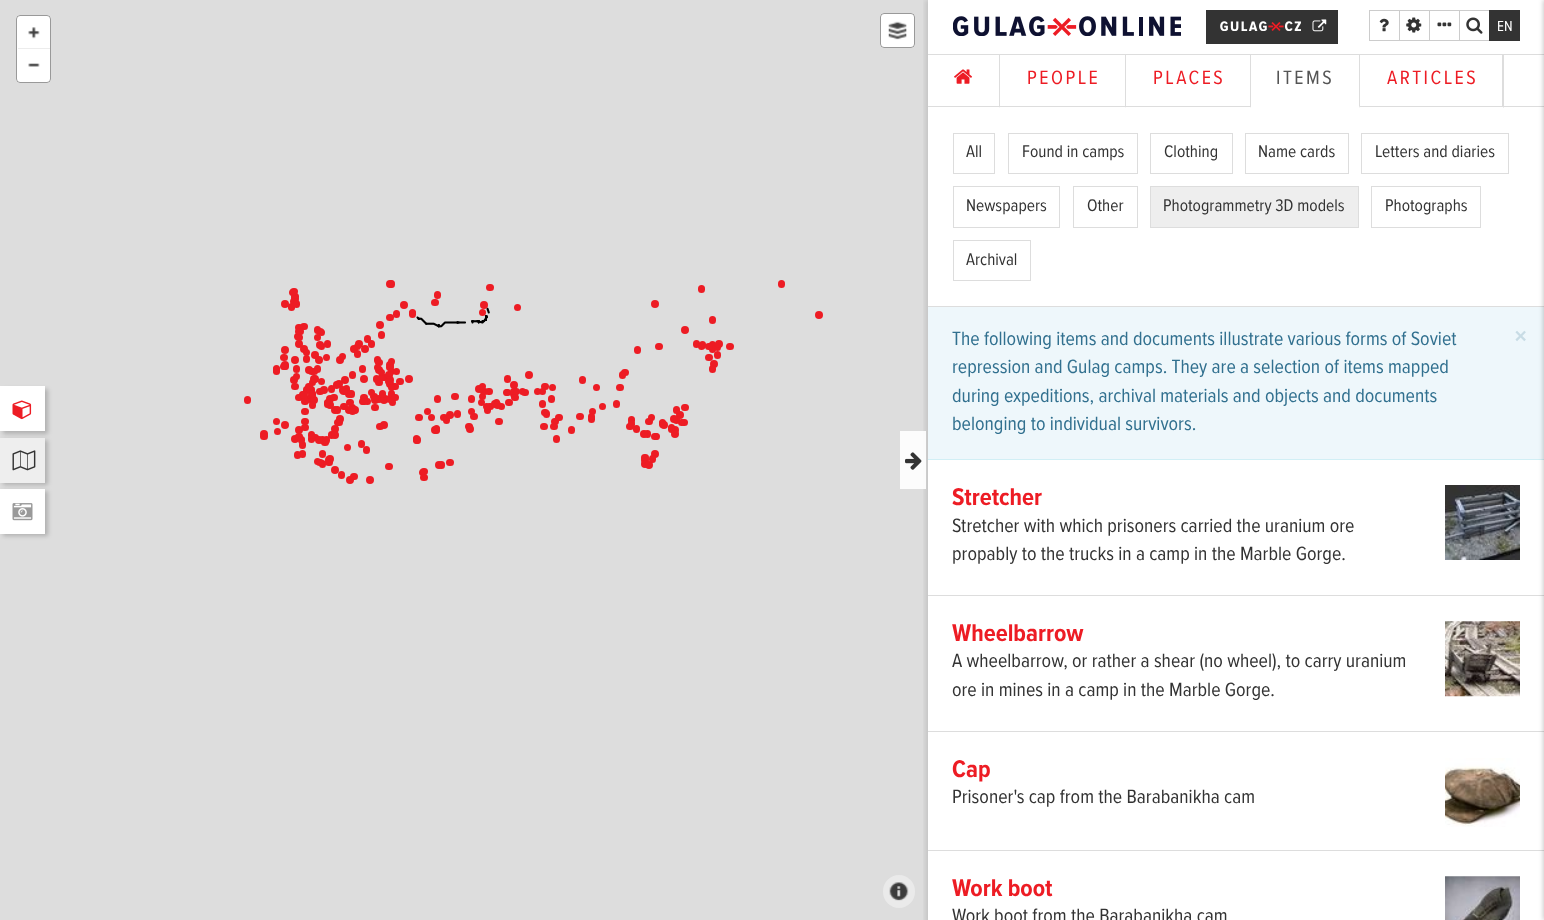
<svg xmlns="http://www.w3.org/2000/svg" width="1544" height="920">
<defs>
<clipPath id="clip1"><rect x="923" y="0" width="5" height="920"/></clipPath>
</defs>
<rect width="100%" height="100%" fill="#fff"/>
<rect width="928" height="920" fill="#ddd"/>
<rect x="16" y="15" width="35" height="68" rx="4" fill="#fff"/>
<rect x="16.5" y="15.5" width="34" height="67" rx="3.5" fill="none" stroke="#00000066"/>
<image x="28" y="27" width="12" height="12" href="media/1.png"/>
<rect x="18" y="48" width="32" height="1" fill="#ececec"/>
<image x="28" y="63" width="12" height="4" href="media/2.png"/>
<rect x="880" y="13" width="35" height="35" rx="4" fill="#fff"/>
<rect x="880.5" y="13.5" width="34" height="34" rx="3.5" fill="none" stroke="#00000066"/>
<image x="888" y="21" width="19" height="19" href="media/3.png"/>
<rect x="883" y="875" width="32" height="33" rx="16" fill="#eaeaea"/>
<image x="889" y="882" width="20" height="19" href="media/4.png"/>
<circle cx="390" cy="284" r="4" fill="#ed1c24"/>
<rect x="291" y="293" width="8" height="7" rx="3.5" fill="#ed1c24"/>
<rect x="290" y="288" width="8" height="7" rx="3.5" fill="#ed1c24"/>
<rect x="388" y="280" width="7" height="8" rx="3.5" fill="#ed1c24"/>
<rect x="486" y="284" width="8" height="7" rx="3.5" fill="#ed1c24"/>
<rect x="698" y="285" width="7" height="8" rx="3.5" fill="#ed1c24"/>
<rect x="778" y="280" width="7" height="8" rx="3.5" fill="#ed1c24"/>
<circle cx="295" cy="299" r="4" fill="#ed1c24"/>
<circle cx="292.5" cy="292.5" r="3.5" fill="#ed1c24"/>
<rect x="434" y="291" width="7" height="8" rx="3.5" fill="#ed1c24"/>
<circle cx="285" cy="304" r="4" fill="#ed1c24"/>
<rect x="290" y="298" width="8" height="7" rx="3.5" fill="#ed1c24"/>
<rect x="431" y="299" width="8" height="7" rx="3.5" fill="#ed1c24"/>
<circle cx="291.5" cy="307.5" r="3.5" fill="#ed1c24"/>
<circle cx="291.5" cy="306.5" r="3.5" fill="#ed1c24"/>
<rect x="293" y="300" width="7" height="8" rx="3.5" fill="#ed1c24"/>
<circle cx="404" cy="305" r="4" fill="#ed1c24"/>
<image x="416" y="307" width="74" height="21" href="media/5.png"/>
<circle cx="484" cy="305" r="4" fill="#ed1c24"/>
<circle cx="655" cy="304" r="4" fill="#ed1c24"/>
<circle cx="517.5" cy="307.5" r="3.5" fill="#ed1c24"/>
<rect x="386" y="314" width="8" height="7" rx="3.5" fill="#ed1c24"/>
<rect x="393" y="310" width="7" height="8" rx="3.5" fill="#ed1c24"/>
<rect x="409" y="310" width="7" height="8" rx="3.5" fill="#ed1c24"/>
<circle cx="412.5" cy="312.5" r="3.5" fill="#ed1c24"/>
<circle cx="482.5" cy="312.5" r="3.5" fill="#ed1c24"/>
<rect x="709" y="316" width="7" height="8" rx="3.5" fill="#ed1c24"/>
<circle cx="819" cy="315" r="4" fill="#ed1c24"/>
<circle cx="297.5" cy="336.5" r="3.5" fill="#ed1c24"/>
<rect x="295" y="328" width="8" height="7" rx="3.5" fill="#ed1c24"/>
<rect x="300" y="323" width="8" height="7" rx="3.5" fill="#ed1c24"/>
<rect x="295" y="324" width="8" height="7" rx="3.5" fill="#ed1c24"/>
<circle cx="321.5" cy="332.5" r="3.5" fill="#ed1c24"/>
<circle cx="317.5" cy="337.5" r="3.5" fill="#ed1c24"/>
<rect x="316" y="328" width="8" height="7" rx="3.5" fill="#ed1c24"/>
<rect x="314" y="326" width="7" height="8" rx="3.5" fill="#ed1c24"/>
<circle cx="380" cy="325" r="4" fill="#ed1c24"/>
<circle cx="685" cy="330" r="4" fill="#ed1c24"/>
<rect x="295" y="334" width="8" height="7" rx="3.5" fill="#ed1c24"/>
<rect x="296" y="328" width="8" height="7" rx="3.5" fill="#ed1c24"/>
<rect x="378" y="331" width="7" height="8" rx="3.5" fill="#ed1c24"/>
<rect x="368" y="340" width="7" height="8" rx="3.5" fill="#ed1c24"/>
<rect x="364" y="335" width="7" height="8" rx="3.5" fill="#ed1c24"/>
<circle cx="304" cy="349" r="4" fill="#ed1c24"/>
<circle cx="299" cy="344" r="4" fill="#ed1c24"/>
<rect x="324" y="340" width="7" height="8" rx="3.5" fill="#ed1c24"/>
<circle cx="321.5" cy="346.5" r="3.5" fill="#ed1c24"/>
<circle cx="320" cy="345" r="4" fill="#ed1c24"/>
<circle cx="354" cy="349" r="4" fill="#ed1c24"/>
<circle cx="357.5" cy="346.5" r="3.5" fill="#ed1c24"/>
<circle cx="365" cy="349" r="4" fill="#ed1c24"/>
<circle cx="359" cy="344" r="4" fill="#ed1c24"/>
<rect x="693" y="340" width="7" height="8" rx="3.5" fill="#ed1c24"/>
<rect x="699" y="341" width="7" height="8" rx="3.5" fill="#ed1c24"/>
<rect x="709" y="341" width="7" height="8" rx="3.5" fill="#ed1c24"/>
<rect x="714" y="351" width="7" height="8" rx="3.5" fill="#ed1c24"/>
<rect x="709" y="345" width="7" height="8" rx="3.5" fill="#ed1c24"/>
<circle cx="717.5" cy="347.5" r="3.5" fill="#ed1c24"/>
<circle cx="719" cy="344" r="4" fill="#ed1c24"/>
<rect x="655" y="343" width="8" height="7" rx="3.5" fill="#ed1c24"/>
<circle cx="701.5" cy="346.5" r="3.5" fill="#ed1c24"/>
<rect x="705" y="343" width="8" height="7" rx="3.5" fill="#ed1c24"/>
<rect x="726" y="343" width="8" height="7" rx="3.5" fill="#ed1c24"/>
<circle cx="285" cy="350" r="4" fill="#ed1c24"/>
<rect x="303" y="355" width="7" height="8" rx="3.5" fill="#ed1c24"/>
<circle cx="306.5" cy="352.5" r="3.5" fill="#ed1c24"/>
<rect x="634" y="346" width="7" height="8" rx="3.5" fill="#ed1c24"/>
<rect x="280" y="354" width="8" height="7" rx="3.5" fill="#ed1c24"/>
<circle cx="295" cy="360" r="4" fill="#ed1c24"/>
<circle cx="315" cy="355" r="4" fill="#ed1c24"/>
<circle cx="326.5" cy="357.5" r="3.5" fill="#ed1c24"/>
<circle cx="340" cy="360" r="4" fill="#ed1c24"/>
<circle cx="342.5" cy="356.5" r="3.5" fill="#ed1c24"/>
<rect x="354" y="350" width="7" height="8" rx="3.5" fill="#ed1c24"/>
<circle cx="714" cy="364" r="4" fill="#ed1c24"/>
<rect x="705" y="354" width="8" height="7" rx="3.5" fill="#ed1c24"/>
<circle cx="319" cy="360" r="4" fill="#ed1c24"/>
<rect x="375" y="359" width="8" height="7" rx="3.5" fill="#ed1c24"/>
<rect x="374" y="356" width="7" height="8" rx="3.5" fill="#ed1c24"/>
<circle cx="390" cy="365" r="4" fill="#ed1c24"/>
<rect x="386" y="364" width="8" height="7" rx="3.5" fill="#ed1c24"/>
<circle cx="391.5" cy="361.5" r="3.5" fill="#ed1c24"/>
<circle cx="285" cy="365" r="4" fill="#ed1c24"/>
<rect x="281" y="363" width="8" height="7" rx="3.5" fill="#ed1c24"/>
<rect x="280" y="363" width="8" height="7" rx="3.5" fill="#ed1c24"/>
<circle cx="276.5" cy="371.5" r="3.5" fill="#ed1c24"/>
<rect x="273" y="366" width="7" height="8" rx="3.5" fill="#ed1c24"/>
<rect x="273" y="365" width="7" height="8" rx="3.5" fill="#ed1c24"/>
<rect x="293" y="365" width="7" height="8" rx="3.5" fill="#ed1c24"/>
<rect x="314" y="365" width="7" height="8" rx="3.5" fill="#ed1c24"/>
<rect x="359" y="365" width="7" height="8" rx="3.5" fill="#ed1c24"/>
<circle cx="379" cy="370" r="4" fill="#ed1c24"/>
<circle cx="377.5" cy="367.5" r="3.5" fill="#ed1c24"/>
<rect x="709" y="365" width="7" height="8" rx="3.5" fill="#ed1c24"/>
<circle cx="311.5" cy="371.5" r="3.5" fill="#ed1c24"/>
<rect x="310" y="368" width="8" height="7" rx="3.5" fill="#ed1c24"/>
<circle cx="309" cy="370" r="4" fill="#ed1c24"/>
<rect x="349" y="371" width="7" height="8" rx="3.5" fill="#ed1c24"/>
<rect x="375" y="379" width="8" height="7" rx="3.5" fill="#ed1c24"/>
<rect x="380" y="374" width="8" height="7" rx="3.5" fill="#ed1c24"/>
<rect x="373" y="375" width="7" height="8" rx="3.5" fill="#ed1c24"/>
<circle cx="381.5" cy="377.5" r="3.5" fill="#ed1c24"/>
<circle cx="381.5" cy="372.5" r="3.5" fill="#ed1c24"/>
<circle cx="391.5" cy="371.5" r="3.5" fill="#ed1c24"/>
<circle cx="396.5" cy="371.5" r="3.5" fill="#ed1c24"/>
<rect x="621" y="369" width="8" height="7" rx="3.5" fill="#ed1c24"/>
<circle cx="294" cy="380" r="4" fill="#ed1c24"/>
<circle cx="296.5" cy="376.5" r="3.5" fill="#ed1c24"/>
<circle cx="389" cy="375" r="4" fill="#ed1c24"/>
<circle cx="529" cy="375" r="4" fill="#ed1c24"/>
<rect x="619" y="371" width="7" height="8" rx="3.5" fill="#ed1c24"/>
<circle cx="314" cy="379" r="4" fill="#ed1c24"/>
<circle cx="312.5" cy="382.5" r="3.5" fill="#ed1c24"/>
<circle cx="315" cy="379" r="4" fill="#ed1c24"/>
<circle cx="321.5" cy="381.5" r="3.5" fill="#ed1c24"/>
<circle cx="345" cy="380" r="4" fill="#ed1c24"/>
<circle cx="364" cy="379" r="4" fill="#ed1c24"/>
<rect x="391" y="383" width="8" height="7" rx="3.5" fill="#ed1c24"/>
<circle cx="390" cy="384" r="4" fill="#ed1c24"/>
<circle cx="390" cy="380" r="4" fill="#ed1c24"/>
<circle cx="409" cy="379" r="4" fill="#ed1c24"/>
<rect x="504" y="375" width="7" height="8" rx="3.5" fill="#ed1c24"/>
<rect x="579" y="376" width="7" height="8" rx="3.5" fill="#ed1c24"/>
<circle cx="339" cy="384" r="4" fill="#ed1c24"/>
<circle cx="379" cy="399" r="4" fill="#ed1c24"/>
<circle cx="385" cy="399" r="4" fill="#ed1c24"/>
<circle cx="384" cy="400" r="4" fill="#ed1c24"/>
<circle cx="392.5" cy="402.5" r="3.5" fill="#ed1c24"/>
<circle cx="390" cy="399" r="4" fill="#ed1c24"/>
<rect x="388" y="390" width="7" height="8" rx="3.5" fill="#ed1c24"/>
<circle cx="391.5" cy="387.5" r="3.5" fill="#ed1c24"/>
<rect x="385" y="378" width="8" height="7" rx="3.5" fill="#ed1c24"/>
<rect x="396" y="378" width="8" height="7" rx="3.5" fill="#ed1c24"/>
<rect x="291" y="383" width="8" height="7" rx="3.5" fill="#ed1c24"/>
<rect x="299" y="391" width="7" height="8" rx="3.5" fill="#ed1c24"/>
<circle cx="310" cy="399" r="4" fill="#ed1c24"/>
<rect x="308" y="391" width="7" height="8" rx="3.5" fill="#ed1c24"/>
<rect x="309" y="391" width="7" height="8" rx="3.5" fill="#ed1c24"/>
<rect x="303" y="386" width="7" height="8" rx="3.5" fill="#ed1c24"/>
<rect x="308" y="386" width="7" height="8" rx="3.5" fill="#ed1c24"/>
<circle cx="310" cy="390" r="4" fill="#ed1c24"/>
<rect x="305" y="383" width="8" height="7" rx="3.5" fill="#ed1c24"/>
<rect x="328" y="385" width="7" height="8" rx="3.5" fill="#ed1c24"/>
<rect x="348" y="390" width="7" height="8" rx="3.5" fill="#ed1c24"/>
<rect x="343" y="385" width="7" height="8" rx="3.5" fill="#ed1c24"/>
<rect x="339" y="386" width="7" height="8" rx="3.5" fill="#ed1c24"/>
<rect x="333" y="381" width="7" height="8" rx="3.5" fill="#ed1c24"/>
<circle cx="481.5" cy="402.5" r="3.5" fill="#ed1c24"/>
<circle cx="482.5" cy="396.5" r="3.5" fill="#ed1c24"/>
<rect x="480" y="388" width="8" height="7" rx="3.5" fill="#ed1c24"/>
<circle cx="479" cy="389" r="4" fill="#ed1c24"/>
<rect x="485" y="388" width="8" height="7" rx="3.5" fill="#ed1c24"/>
<circle cx="482.5" cy="386.5" r="3.5" fill="#ed1c24"/>
<circle cx="507.5" cy="392.5" r="3.5" fill="#ed1c24"/>
<circle cx="514" cy="394" r="4" fill="#ed1c24"/>
<rect x="510" y="388" width="8" height="7" rx="3.5" fill="#ed1c24"/>
<circle cx="522.5" cy="391.5" r="3.5" fill="#ed1c24"/>
<circle cx="516.5" cy="391.5" r="3.5" fill="#ed1c24"/>
<circle cx="514" cy="385" r="4" fill="#ed1c24"/>
<circle cx="542.5" cy="391.5" r="3.5" fill="#ed1c24"/>
<rect x="541" y="383" width="8" height="7" rx="3.5" fill="#ed1c24"/>
<circle cx="552.5" cy="387.5" r="3.5" fill="#ed1c24"/>
<circle cx="596.5" cy="387.5" r="3.5" fill="#ed1c24"/>
<rect x="616" y="384" width="8" height="7" rx="3.5" fill="#ed1c24"/>
<rect x="316" y="388" width="8" height="7" rx="3.5" fill="#ed1c24"/>
<circle cx="324" cy="390" r="4" fill="#ed1c24"/>
<circle cx="349" cy="394" r="4" fill="#ed1c24"/>
<rect x="340" y="388" width="8" height="7" rx="3.5" fill="#ed1c24"/>
<circle cx="367.5" cy="401.5" r="3.5" fill="#ed1c24"/>
<rect x="370" y="393" width="8" height="7" rx="3.5" fill="#ed1c24"/>
<circle cx="371.5" cy="392.5" r="3.5" fill="#ed1c24"/>
<circle cx="506.5" cy="392.5" r="3.5" fill="#ed1c24"/>
<circle cx="537.5" cy="391.5" r="3.5" fill="#ed1c24"/>
<circle cx="314" cy="400" r="4" fill="#ed1c24"/>
<rect x="309" y="390" width="7" height="8" rx="3.5" fill="#ed1c24"/>
<rect x="521" y="389" width="8" height="7" rx="3.5" fill="#ed1c24"/>
<rect x="379" y="390" width="7" height="8" rx="3.5" fill="#ed1c24"/>
<rect x="295" y="394" width="8" height="7" rx="3.5" fill="#ed1c24"/>
<rect x="301" y="398" width="8" height="7" rx="3.5" fill="#ed1c24"/>
<circle cx="304" cy="395" r="4" fill="#ed1c24"/>
<circle cx="330" cy="399" r="4" fill="#ed1c24"/>
<rect x="330" y="394" width="8" height="7" rx="3.5" fill="#ed1c24"/>
<rect x="360" y="394" width="8" height="7" rx="3.5" fill="#ed1c24"/>
<rect x="391" y="394" width="8" height="7" rx="3.5" fill="#ed1c24"/>
<rect x="451" y="393" width="8" height="7" rx="3.5" fill="#ed1c24"/>
<rect x="505" y="399" width="8" height="7" rx="3.5" fill="#ed1c24"/>
<rect x="511" y="394" width="8" height="7" rx="3.5" fill="#ed1c24"/>
<rect x="244" y="396" width="7" height="8" rx="3.5" fill="#ed1c24"/>
<rect x="434" y="395" width="7" height="8" rx="3.5" fill="#ed1c24"/>
<rect x="468" y="395" width="7" height="8" rx="3.5" fill="#ed1c24"/>
<rect x="548" y="395" width="7" height="8" rx="3.5" fill="#ed1c24"/>
<circle cx="362.5" cy="401.5" r="3.5" fill="#ed1c24"/>
<circle cx="375" cy="400" r="4" fill="#ed1c24"/>
<rect x="360" y="398" width="8" height="7" rx="3.5" fill="#ed1c24"/>
<rect x="324" y="400" width="7" height="8" rx="3.5" fill="#ed1c24"/>
<circle cx="335" cy="410" r="4" fill="#ed1c24"/>
<circle cx="330" cy="405" r="4" fill="#ed1c24"/>
<circle cx="327.5" cy="402.5" r="3.5" fill="#ed1c24"/>
<circle cx="352.5" cy="407.5" r="3.5" fill="#ed1c24"/>
<rect x="346" y="399" width="8" height="7" rx="3.5" fill="#ed1c24"/>
<rect x="484" y="406" width="7" height="8" rx="3.5" fill="#ed1c24"/>
<rect x="486" y="403" width="8" height="7" rx="3.5" fill="#ed1c24"/>
<circle cx="496.5" cy="402.5" r="3.5" fill="#ed1c24"/>
<rect x="309" y="401" width="7" height="8" rx="3.5" fill="#ed1c24"/>
<circle cx="495" cy="404" r="4" fill="#ed1c24"/>
<rect x="539" y="400" width="7" height="8" rx="3.5" fill="#ed1c24"/>
<rect x="613" y="400" width="7" height="8" rx="3.5" fill="#ed1c24"/>
<rect x="334" y="406" width="7" height="8" rx="3.5" fill="#ed1c24"/>
<circle cx="354" cy="410" r="4" fill="#ed1c24"/>
<circle cx="355" cy="410" r="4" fill="#ed1c24"/>
<circle cx="349" cy="410" r="4" fill="#ed1c24"/>
<rect x="340" y="403" width="8" height="7" rx="3.5" fill="#ed1c24"/>
<circle cx="486.5" cy="406.5" r="3.5" fill="#ed1c24"/>
<circle cx="501.5" cy="406.5" r="3.5" fill="#ed1c24"/>
<rect x="494" y="401" width="7" height="8" rx="3.5" fill="#ed1c24"/>
<rect x="371" y="404" width="8" height="7" rx="3.5" fill="#ed1c24"/>
<circle cx="602.5" cy="406.5" r="3.5" fill="#ed1c24"/>
<rect x="681" y="404" width="8" height="7" rx="3.5" fill="#ed1c24"/>
<rect x="301" y="408" width="8" height="7" rx="3.5" fill="#ed1c24"/>
<circle cx="680" cy="415" r="4" fill="#ed1c24"/>
<rect x="673" y="406" width="7" height="8" rx="3.5" fill="#ed1c24"/>
<circle cx="352.5" cy="411.5" r="3.5" fill="#ed1c24"/>
<circle cx="427.5" cy="411.5" r="3.5" fill="#ed1c24"/>
<rect x="454" y="410" width="7" height="8" rx="3.5" fill="#ed1c24"/>
<rect x="470" y="413" width="8" height="7" rx="3.5" fill="#ed1c24"/>
<circle cx="471.5" cy="411.5" r="3.5" fill="#ed1c24"/>
<rect x="543" y="410" width="7" height="8" rx="3.5" fill="#ed1c24"/>
<rect x="541" y="409" width="8" height="7" rx="3.5" fill="#ed1c24"/>
<circle cx="592.5" cy="411.5" r="3.5" fill="#ed1c24"/>
<circle cx="337.5" cy="422.5" r="3.5" fill="#ed1c24"/>
<rect x="328" y="431" width="7" height="8" rx="3.5" fill="#ed1c24"/>
<circle cx="335" cy="429" r="4" fill="#ed1c24"/>
<rect x="335" y="419" width="8" height="7" rx="3.5" fill="#ed1c24"/>
<circle cx="340" cy="419" r="4" fill="#ed1c24"/>
<rect x="415" y="414" width="8" height="7" rx="3.5" fill="#ed1c24"/>
<circle cx="431.5" cy="417.5" r="3.5" fill="#ed1c24"/>
<rect x="440" y="414" width="8" height="7" rx="3.5" fill="#ed1c24"/>
<rect x="443" y="416" width="7" height="8" rx="3.5" fill="#ed1c24"/>
<circle cx="450" cy="415" r="4" fill="#ed1c24"/>
<rect x="551" y="418" width="8" height="7" rx="3.5" fill="#ed1c24"/>
<rect x="555" y="414" width="8" height="7" rx="3.5" fill="#ed1c24"/>
<rect x="576" y="413" width="8" height="7" rx="3.5" fill="#ed1c24"/>
<rect x="588" y="415" width="7" height="8" rx="3.5" fill="#ed1c24"/>
<circle cx="591.5" cy="416.5" r="3.5" fill="#ed1c24"/>
<circle cx="651.5" cy="417.5" r="3.5" fill="#ed1c24"/>
<rect x="626" y="423" width="8" height="7" rx="3.5" fill="#ed1c24"/>
<rect x="628" y="416" width="7" height="8" rx="3.5" fill="#ed1c24"/>
<rect x="680" y="419" width="8" height="7" rx="3.5" fill="#ed1c24"/>
<circle cx="681.5" cy="422.5" r="3.5" fill="#ed1c24"/>
<rect x="673" y="416" width="7" height="8" rx="3.5" fill="#ed1c24"/>
<circle cx="674" cy="419" r="4" fill="#ed1c24"/>
<circle cx="276.5" cy="421.5" r="3.5" fill="#ed1c24"/>
<rect x="301" y="418" width="8" height="7" rx="3.5" fill="#ed1c24"/>
<rect x="495" y="418" width="8" height="7" rx="3.5" fill="#ed1c24"/>
<rect x="645" y="418" width="8" height="7" rx="3.5" fill="#ed1c24"/>
<rect x="659" y="420" width="7" height="8" rx="3.5" fill="#ed1c24"/>
<circle cx="662.5" cy="422.5" r="3.5" fill="#ed1c24"/>
<circle cx="285" cy="425" r="4" fill="#ed1c24"/>
<rect x="376" y="423" width="8" height="7" rx="3.5" fill="#ed1c24"/>
<circle cx="384" cy="425" r="4" fill="#ed1c24"/>
<rect x="633" y="425" width="7" height="8" rx="3.5" fill="#ed1c24"/>
<rect x="628" y="420" width="7" height="8" rx="3.5" fill="#ed1c24"/>
<rect x="301" y="424" width="8" height="7" rx="3.5" fill="#ed1c24"/>
<circle cx="435" cy="430" r="4" fill="#ed1c24"/>
<rect x="433" y="426" width="7" height="8" rx="3.5" fill="#ed1c24"/>
<rect x="433" y="425" width="7" height="8" rx="3.5" fill="#ed1c24"/>
<rect x="465" y="423" width="8" height="7" rx="3.5" fill="#ed1c24"/>
<rect x="540" y="423" width="8" height="7" rx="3.5" fill="#ed1c24"/>
<rect x="550" y="423" width="8" height="7" rx="3.5" fill="#ed1c24"/>
<circle cx="664" cy="425" r="4" fill="#ed1c24"/>
<circle cx="675" cy="430" r="4" fill="#ed1c24"/>
<rect x="668" y="425" width="7" height="8" rx="3.5" fill="#ed1c24"/>
<circle cx="671.5" cy="427.5" r="3.5" fill="#ed1c24"/>
<circle cx="295" cy="439" r="4" fill="#ed1c24"/>
<rect x="295" y="433" width="8" height="7" rx="3.5" fill="#ed1c24"/>
<circle cx="299" cy="430" r="4" fill="#ed1c24"/>
<circle cx="470" cy="429" r="4" fill="#ed1c24"/>
<circle cx="264" cy="434" r="4" fill="#ed1c24"/>
<circle cx="277.5" cy="431.5" r="3.5" fill="#ed1c24"/>
<rect x="568" y="426" width="7" height="8" rx="3.5" fill="#ed1c24"/>
<rect x="644" y="430" width="7" height="8" rx="3.5" fill="#ed1c24"/>
<circle cx="644" cy="434" r="4" fill="#ed1c24"/>
<rect x="308" y="435" width="7" height="8" rx="3.5" fill="#ed1c24"/>
<rect x="311" y="434" width="8" height="7" rx="3.5" fill="#ed1c24"/>
<rect x="308" y="431" width="7" height="8" rx="3.5" fill="#ed1c24"/>
<circle cx="675" cy="434" r="4" fill="#ed1c24"/>
<rect x="260" y="433" width="8" height="7" rx="3.5" fill="#ed1c24"/>
<circle cx="335" cy="435" r="4" fill="#ed1c24"/>
<circle cx="656.5" cy="436.5" r="3.5" fill="#ed1c24"/>
<rect x="651" y="433" width="8" height="7" rx="3.5" fill="#ed1c24"/>
<rect x="299" y="441" width="7" height="8" rx="3.5" fill="#ed1c24"/>
<rect x="298" y="436" width="7" height="8" rx="3.5" fill="#ed1c24"/>
<rect x="321" y="439" width="8" height="7" rx="3.5" fill="#ed1c24"/>
<rect x="319" y="436" width="7" height="8" rx="3.5" fill="#ed1c24"/>
<circle cx="319" cy="440" r="4" fill="#ed1c24"/>
<rect x="413" y="435" width="7" height="8" rx="3.5" fill="#ed1c24"/>
<rect x="553" y="435" width="7" height="8" rx="3.5" fill="#ed1c24"/>
<rect x="323" y="436" width="7" height="8" rx="3.5" fill="#ed1c24"/>
<rect x="413" y="436" width="7" height="8" rx="3.5" fill="#ed1c24"/>
<circle cx="347.5" cy="447.5" r="3.5" fill="#ed1c24"/>
<rect x="363" y="446" width="7" height="8" rx="3.5" fill="#ed1c24"/>
<rect x="358" y="440" width="7" height="8" rx="3.5" fill="#ed1c24"/>
<rect x="414" y="436" width="7" height="8" rx="3.5" fill="#ed1c24"/>
<rect x="299" y="450" width="7" height="8" rx="3.5" fill="#ed1c24"/>
<rect x="294" y="451" width="7" height="8" rx="3.5" fill="#ed1c24"/>
<circle cx="329" cy="460" r="4" fill="#ed1c24"/>
<rect x="319" y="450" width="7" height="8" rx="3.5" fill="#ed1c24"/>
<circle cx="330" cy="459" r="4" fill="#ed1c24"/>
<circle cx="645" cy="464" r="4" fill="#ed1c24"/>
<circle cx="645" cy="460" r="4" fill="#ed1c24"/>
<rect x="641" y="454" width="8" height="7" rx="3.5" fill="#ed1c24"/>
<circle cx="655" cy="454" r="4" fill="#ed1c24"/>
<circle cx="317.5" cy="461.5" r="3.5" fill="#ed1c24"/>
<circle cx="649" cy="465" r="4" fill="#ed1c24"/>
<rect x="649" y="455" width="7" height="8" rx="3.5" fill="#ed1c24"/>
<rect x="319" y="460" width="7" height="8" rx="3.5" fill="#ed1c24"/>
<rect x="316" y="459" width="8" height="7" rx="3.5" fill="#ed1c24"/>
<rect x="325" y="459" width="8" height="7" rx="3.5" fill="#ed1c24"/>
<rect x="446" y="459" width="8" height="7" rx="3.5" fill="#ed1c24"/>
<rect x="438" y="461" width="7" height="8" rx="3.5" fill="#ed1c24"/>
<circle cx="439" cy="465" r="4" fill="#ed1c24"/>
<circle cx="335" cy="470" r="4" fill="#ed1c24"/>
<rect x="385" y="463" width="8" height="7" rx="3.5" fill="#ed1c24"/>
<circle cx="422.5" cy="472.5" r="3.5" fill="#ed1c24"/>
<rect x="420" y="468" width="8" height="7" rx="3.5" fill="#ed1c24"/>
<rect x="338" y="471" width="7" height="8" rx="3.5" fill="#ed1c24"/>
<circle cx="350" cy="480" r="4" fill="#ed1c24"/>
<rect x="350" y="473" width="8" height="7" rx="3.5" fill="#ed1c24"/>
<circle cx="370" cy="480" r="4" fill="#ed1c24"/>
<rect x="420" y="474" width="8" height="7" rx="3.5" fill="#ed1c24"/>
<g clip-path="url(#clip1)">
<rect x="925" width="618" height="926" fill="#0000001a" filter="blur(2px)"/>
</g>
<rect x="928" y="106" width="616" height="1" fill="#ddd"/>
<path d="M1000 52v56l-1-2v-54z" fill="#ddd"/>
<path d="M1126 52v56l-1-2v-54z" fill="#ddd"/>
<path d="M1251 52v56l-1-2v-54z" fill="#ddd"/>
<rect x="1251" y="106" width="109" height="1" fill="#fff"/>
<path d="M1360 52v56l-1-2v-54z" fill="#ddd"/>
<path d="M1504 52v56l-2-2v-54z" fill="#ddd"/>
<rect x="999" y="52" width="505" height="2" fill="#fff"/>
<rect x="928" y="54" width="616" height="1" fill="#ddd"/>
<image x="953" y="16" width="228" height="20" href="media/6.png"/>
<rect x="1206" y="10" width="132" height="34" fill="#333"/>
<image x="1220" y="21" width="81" height="10" href="media/7.png"/>
<image x="1312" y="19" width="15" height="13" href="media/8.png"/>
<rect x="1369.5" y="10.5" width="30" height="30" fill="none" stroke="#ccc"/>
<image x="1379" y="18" width="10" height="14" href="media/9.png"/>
<rect x="1399.5" y="10.5" width="30" height="30" fill="none" stroke="#ccc"/>
<image x="1406" y="17" width="16" height="16" href="media/10.png"/>
<rect x="1429.5" y="10.5" width="30" height="30" fill="none" stroke="#ccc"/>
<image x="1437" y="22" width="15" height="5" href="media/11.png"/>
<rect x="1459.5" y="10.5" width="30" height="30" fill="none" stroke="#ccc"/>
<image x="1466" y="17" width="17" height="17" href="media/12.png"/>
<rect x="1489" y="10" width="31" height="31" fill="#333"/>
<text x="1497" y="31" style="font-family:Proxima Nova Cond;font-size:15px;fill:#fff">EN</text>
<rect x="900" y="431" width="26" height="58" fill="#ffffffe6"/>
<image x="905" y="452" width="17" height="18" href="media/13.png"/>
<image x="954" y="69" width="18" height="15" href="media/14.png"/>
<text x="1027" y="84" style="font-family:Proxima Nova Cond;font-size:20px;letter-spacing:2.5px;fill:#ed1c24">PEOPLE</text>
<text x="1153" y="84" style="font-family:Proxima Nova Cond;font-size:20px;letter-spacing:2.5px;fill:#ed1c24">PLACES</text>
<text x="1276" y="84" style="font-family:Proxima Nova Cond;font-size:20px;letter-spacing:2.5px;fill:#555">ITEMS</text>
<text x="1387" y="84" style="font-family:Proxima Nova Cond;font-size:20px;letter-spacing:2.5px;fill:#ed1c24">ARTICLES</text>
<rect x="953.5" y="133.5" width="41" height="40" fill="none" stroke="#ddd"/>
<text x="966" y="157" style="font-family:Proxima Nova Cond;font-size:17.5px;fill:#333">All</text>
<rect x="1008.5" y="133.5" width="129" height="40" fill="none" stroke="#ddd"/>
<text x="1022" y="157" style="font-family:Proxima Nova Cond;font-size:17.5px;fill:#333">Found in camps</text>
<rect x="1150.5" y="133.5" width="82" height="40" fill="none" stroke="#ddd"/>
<text x="1164" y="157" style="font-family:Proxima Nova Cond;font-size:17.5px;fill:#333">Clothing</text>
<rect x="1245.5" y="133.5" width="103" height="40" fill="none" stroke="#ddd"/>
<text x="1258" y="157" style="font-family:Proxima Nova Cond;font-size:17.5px;fill:#333">Name cards</text>
<rect x="1361.5" y="133.5" width="147" height="40" fill="none" stroke="#ddd"/>
<text x="1375" y="157" style="font-family:Proxima Nova Cond;font-size:17.5px;fill:#333">Letters and diaries</text>
<rect x="953.5" y="186.5" width="106" height="41" fill="none" stroke="#ddd"/>
<text x="966" y="211" style="font-family:Proxima Nova Cond;font-size:17.5px;fill:#333">Newspapers</text>
<rect x="1073.5" y="186.5" width="64" height="41" fill="none" stroke="#ddd"/>
<text x="1087" y="211" style="font-family:Proxima Nova Cond;font-size:17.5px;fill:#333">Other</text>
<rect x="1150.5" y="186.5" width="208" height="41" fill="#eee" stroke="#ddd"/>
<text x="1163" y="211" style="font-family:Proxima Nova Cond;font-size:17.5px;fill:#333">Photogrammetry 3D models</text>
<rect x="1371.5" y="186.5" width="109" height="41" fill="none" stroke="#ddd"/>
<text x="1385" y="211" style="font-family:Proxima Nova Cond;font-size:17.5px;fill:#333">Photographs</text>
<rect x="953.5" y="240.5" width="77" height="40" fill="none" stroke="#ddd"/>
<text x="966" y="265" style="font-family:Proxima Nova Cond;font-size:17.5px;fill:#333">Archival</text>
<rect x="928" y="306" width="616" height="1" fill="#ddd"/>
<rect x="928" y="307" width="616" height="152" fill="#eef7fb"/>
<rect x="928" y="459" width="616" height="1" fill="#d1eff5"/>
<text x="952" y="345" style="font-family:Proxima Nova Cond;font-size:20px;fill:#31708f">The following items and documents illustrate various forms of Soviet</text>
<text x="1514" y="346" style="font-family:Proxima Nova Cond;font-size:30px;font-weight:bold;fill:#c8dce5">×</text>
<text x="952" y="373" style="font-family:Proxima Nova Cond;font-size:20px;fill:#31708f">repression and Gulag camps. They are a selection of items mapped</text>
<text x="952" y="402" style="font-family:Proxima Nova Cond;font-size:20px;fill:#31708f">during expeditions, archival materials and objects and documents</text>
<text x="952" y="430" style="font-family:Proxima Nova Cond;font-size:20px;fill:#31708f">belonging to individual survivors.</text>
<rect x="928" y="595" width="616" height="1" fill="#ddd"/>
<text x="952" y="505" style="font-family:Proxima Nova Cond;font-size:25px;font-weight:bold;fill:#ed1c24">Stretcher</text>
<image x="1445" y="485" width="75" height="75" href="media/15.png"/>
<text x="952" y="532" style="font-family:Proxima Nova Cond;font-size:20px;fill:#333">Stretcher with which prisoners carried the uranium ore</text>
<text x="952" y="560" style="font-family:Proxima Nova Cond;font-size:20px;fill:#333">propably to the trucks in a camp in the Marble Gorge.</text>
<rect x="928" y="731" width="616" height="1" fill="#ddd"/>
<text x="952" y="641" style="font-family:Proxima Nova Cond;font-size:25px;font-weight:bold;fill:#ed1c24">Wheelbarrow</text>
<image x="1445" y="621" width="75" height="76" href="media/16.png"/>
<text x="952" y="667" style="font-family:Proxima Nova Cond;font-size:20px;fill:#333">A wheelbarrow, or rather a shear (no wheel), to carry uranium</text>
<text x="952" y="696" style="font-family:Proxima Nova Cond;font-size:20px;fill:#333">ore in mines in a camp in the Marble Gorge.</text>
<rect x="928" y="850" width="616" height="1" fill="#ddd"/>
<text x="952" y="777" style="font-family:Proxima Nova Cond;font-size:25px;font-weight:bold;fill:#ed1c24">Cap</text>
<image x="1445" y="758" width="75" height="69" href="media/17.png"/>
<text x="952" y="803" style="font-family:Proxima Nova Cond;font-size:20px;fill:#333">Prisoner's cap from the Barabanikha cam</text>
<text x="952" y="896" style="font-family:Proxima Nova Cond;font-size:25px;font-weight:bold;fill:#ed1c24">Work boot</text>
<image x="1445" y="876" width="75" height="44" href="media/18.png"/>
<text x="952" y="922" style="font-family:Proxima Nova Cond;font-size:20px;fill:#333">Work boot from the Barabanikha cam</text>
<rect x="1543" width="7" height="920" fill="#00000033" filter="blur(2px)"/>
<rect x="3" y="389" width="45" height="45" fill="#00000033" filter="blur(2px)"/>
<rect y="386" width="45" height="45" fill="#fff"/>
<image x="12" y="400" width="20" height="20" href="media/19.png"/>
<rect x="3" y="440" width="45" height="45" fill="#00000033" filter="blur(2px)"/>
<rect y="438" width="45" height="45" fill="#eee"/>
<image x="12" y="450" width="24" height="21" href="media/20.png"/>
<rect x="3" y="491" width="45" height="45" fill="#00000033" filter="blur(2px)"/>
<rect y="489" width="45" height="45" fill="#fff"/>
<image x="12" y="503" width="21" height="18" href="media/21.png"/>
</svg>
